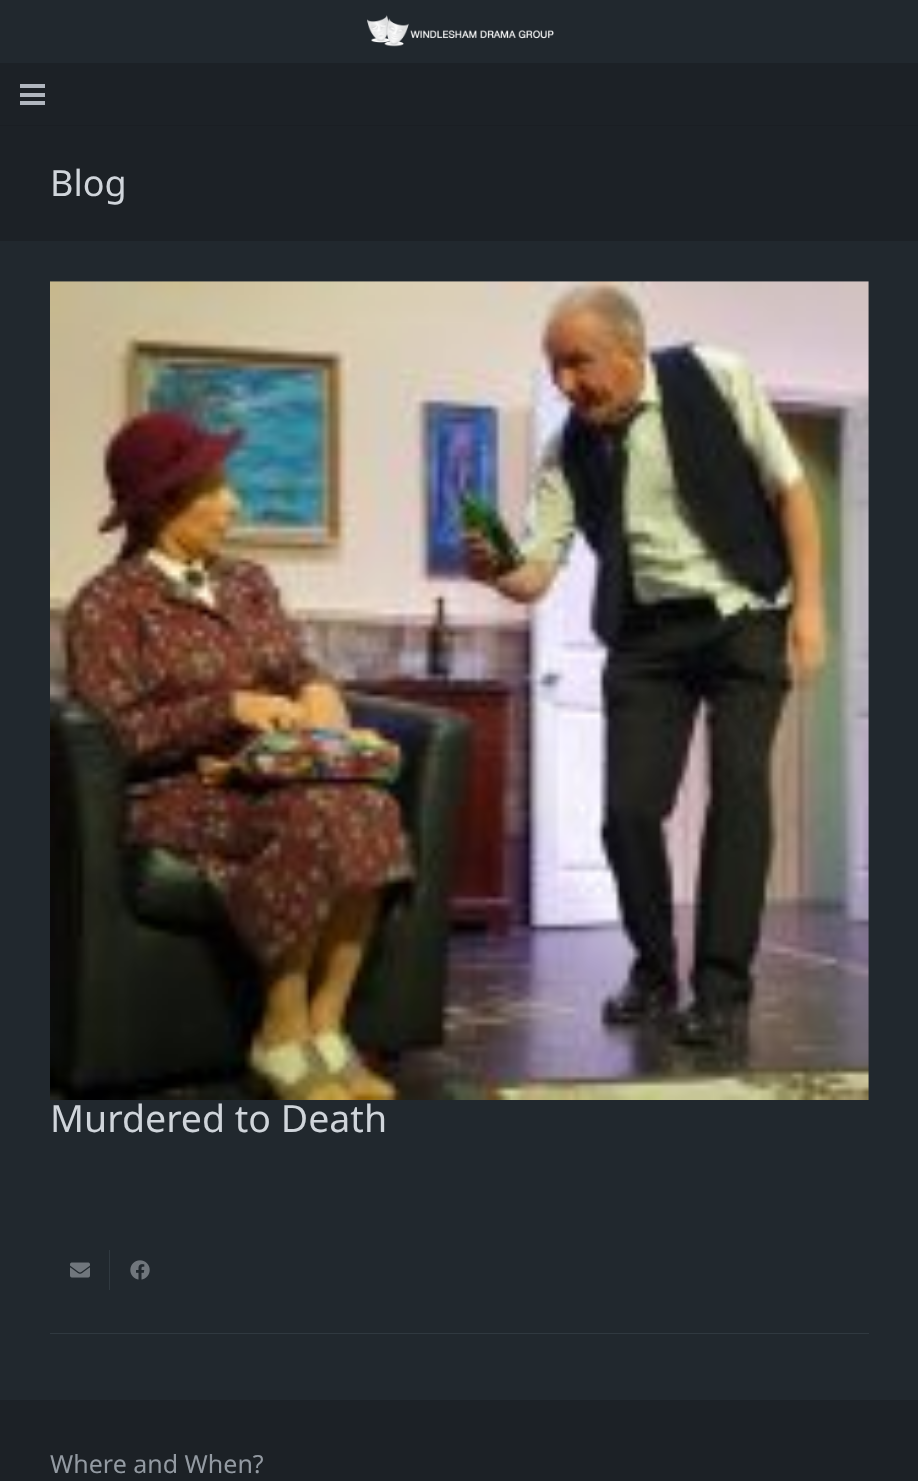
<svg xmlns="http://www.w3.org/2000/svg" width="918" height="1481">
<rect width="100%" height="100%" fill="#21282e"/>
<image x="367" y="15" width="187" height="32" href="media/1.png"/>
<path d="M0 125v1h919v-62v61z" fill="#1a1e23"/>
<rect y="63" width="918" height="62" fill="#1c2126"/>
<rect x="20" y="93" width="25" height="4" fill="#b0b6be"/>
<rect x="20" y="84" width="25" height="4" fill="#b0b6be"/>
<rect x="20" y="101" width="25" height="4" fill="#b0b6be"/>
<rect y="126" width="918" height="115" fill="#1c2126"/>
<text x="50" y="196" style="font-family:Noto Sans;font-size:36px;fill:#d0d5db">Blog</text>
<image x="50" y="281" width="819" height="819" href="media/2.png"/>
<text x="50" y="1132" style="font-family:Noto Sans;font-size:37.5px;fill:#d0d5db">Murdered to Death</text>
<rect x="109" y="1250" width="1" height="40" fill="#303940"/>
<image x="70" y="1262" width="20" height="16" href="media/3.png"/>
<image x="130" y="1260" width="20" height="20" href="media/4.png"/>
<rect x="50" y="1333" width="819" height="1" fill="#303940"/>
<rect y="1400" width="918" height="81" fill="#1c2126"/>
<text x="50" y="1473" style="font-family:Noto Sans;font-size:25px;fill:#939aa2">Where and When?</text>
</svg>
